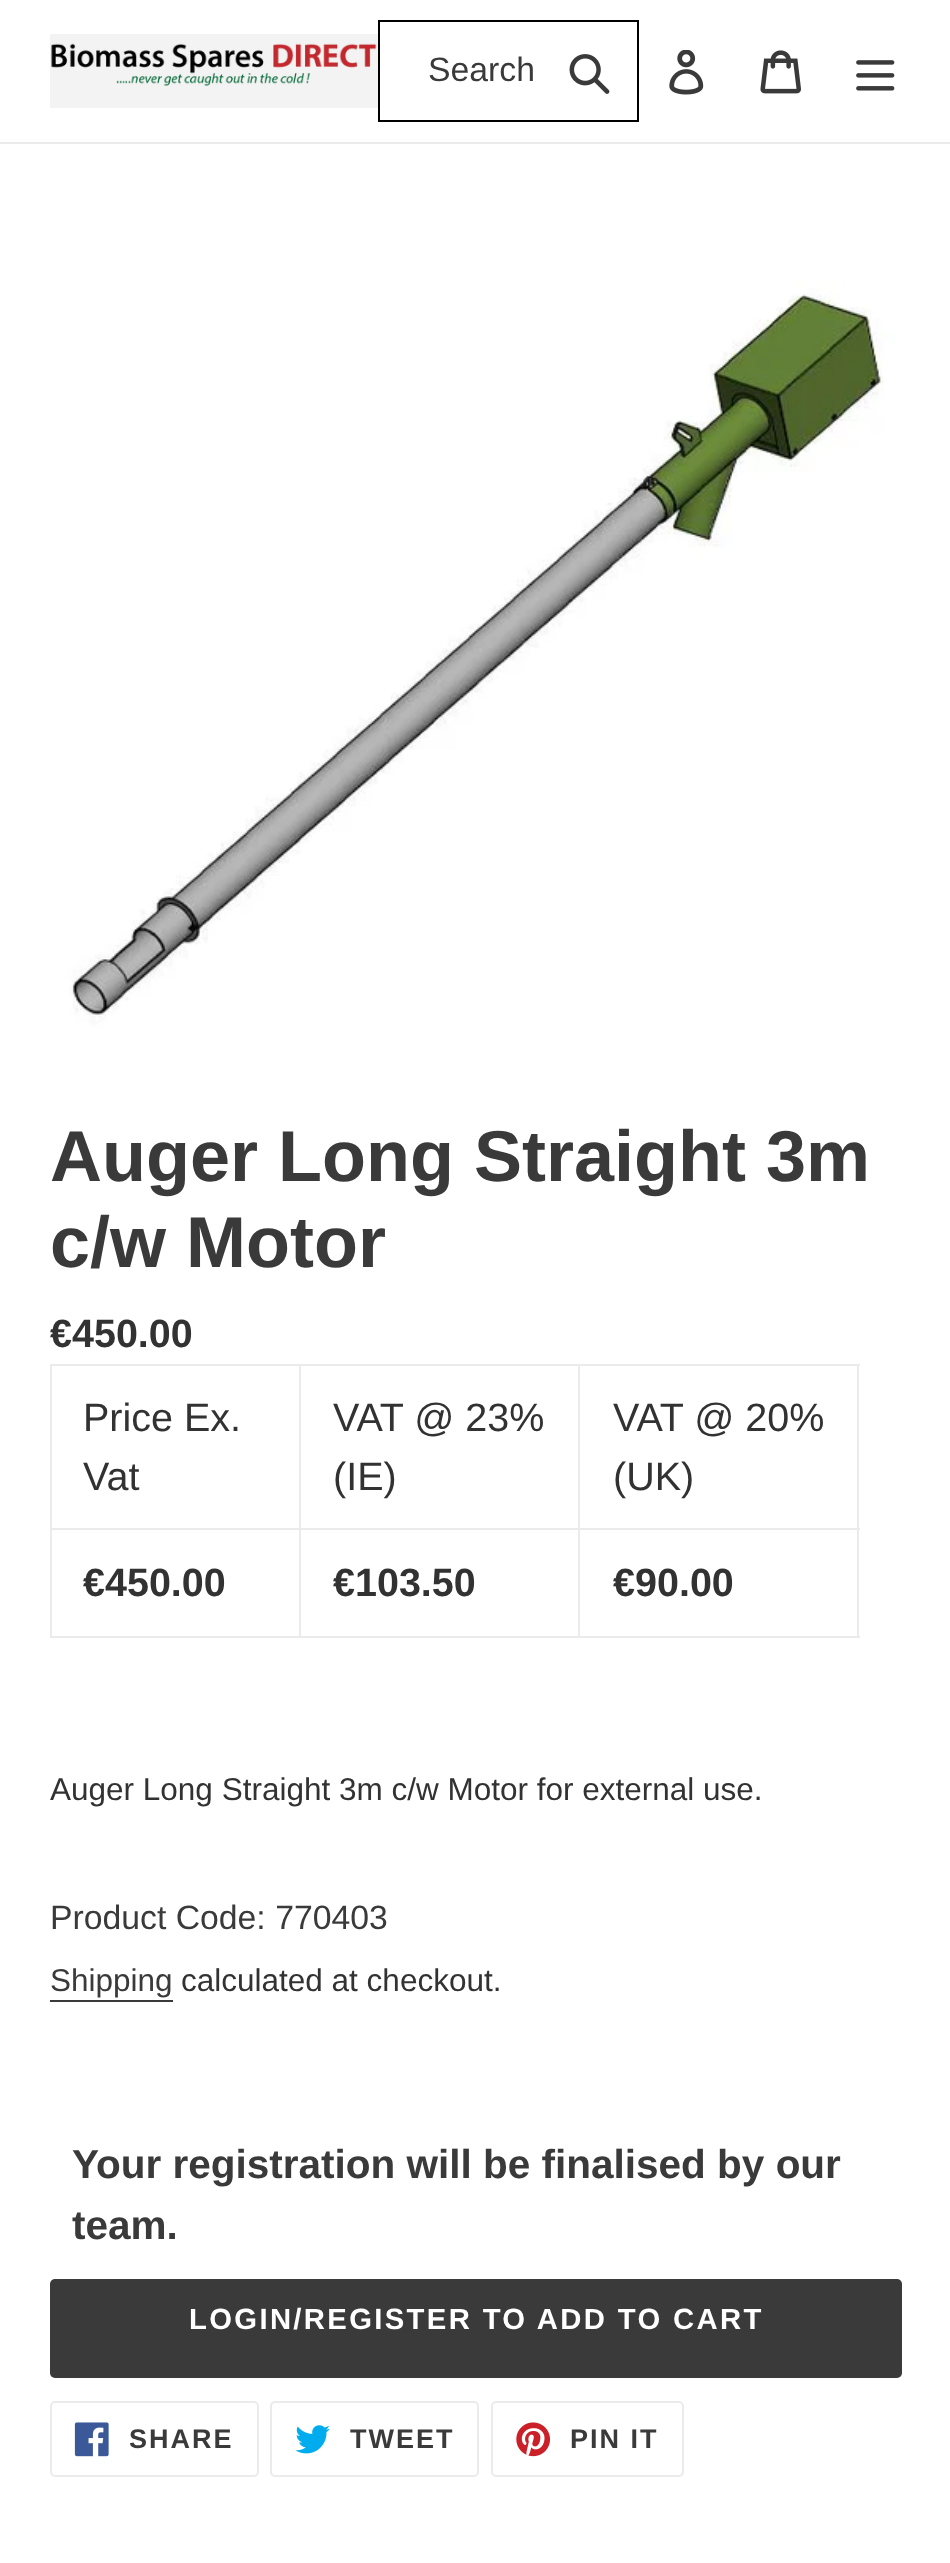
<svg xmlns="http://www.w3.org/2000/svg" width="950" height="2563">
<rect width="100%" height="100%" fill="#fff"/>
<rect y="142" width="950" height="2" fill="#ebebeb"/>
<rect x="50" y="34" width="328" height="74" fill="#f3f3f3"/>
<image x="51" y="43" width="326" height="43" href="media/1.png"/>
<rect x="379" y="21" width="259" height="100" fill="none" stroke="#000" stroke-width="2"/>
<text x="428" y="81" style="font-family:Liberation Sans;font-size:33.75px;fill:#3a3a3a">Search</text>
<image x="569" y="54" width="41" height="40" href="media/2.png"/>
<image x="669" y="50" width="35" height="45" href="media/3.png"/>
<image x="760" y="50" width="41" height="44" href="media/4.png"/>
<image x="856" y="60" width="39" height="31" href="media/5.png"/>
<image x="50" y="194" width="852" height="852" href="media/6.png"/>
<text x="50" y="1181" style="font-family:Liberation Sans;font-size:72px;font-weight:bold;fill:#3a3a3a">Auger Long Straight 3m</text>
<text x="50" y="1267" style="font-family:Liberation Sans;font-size:72px;font-weight:bold;fill:#3a3a3a">c/w Motor</text>
<text x="50" y="1347" style="font-family:Liberation Sans;font-size:39.5px;font-weight:bold;fill:#333232">€450.00</text>
<rect x="578" y="1364" width="282" height="2" fill="#ebebeb"/>
<rect x="578" y="1528" width="282" height="2" fill="#ebebeb"/>
<rect x="857" y="1528" width="2" height="110" fill="#ebebeb"/>
<rect x="578" y="1636" width="282" height="2" fill="#ebebeb"/>
<rect x="578" y="1528" width="2" height="110" fill="#ebebeb"/>
<rect x="299" y="1528" width="282" height="2" fill="#ebebeb"/>
<rect x="578" y="1364" width="2" height="166" fill="#ebebeb"/>
<rect x="299" y="1364" width="282" height="2" fill="#ebebeb"/>
<rect x="299" y="1636" width="282" height="2" fill="#ebebeb"/>
<rect x="299" y="1528" width="2" height="110" fill="#ebebeb"/>
<rect x="50" y="1528" width="252" height="2" fill="#ebebeb"/>
<rect x="299" y="1364" width="2" height="166" fill="#ebebeb"/>
<rect x="50" y="1364" width="252" height="2" fill="#ebebeb"/>
<rect x="50" y="1636" width="252" height="2" fill="#ebebeb"/>
<rect x="50" y="1528" width="2" height="110" fill="#ebebeb"/>
<rect x="50" y="1364" width="2" height="166" fill="#ebebeb"/>
<text x="83" y="1431" style="font-family:Liberation Sans;font-size:39.5px;fill:#333232">Price Ex.</text>
<text x="83" y="1490" style="font-family:Liberation Sans;font-size:39.5px;fill:#333232">Vat</text>
<text x="333" y="1431" style="font-family:Liberation Sans;font-size:39.5px;fill:#333232">VAT @ 23%</text>
<text x="333" y="1490" style="font-family:Liberation Sans;font-size:39.5px;fill:#333232">(IE)</text>
<rect x="857" y="1364" width="2" height="166" fill="#ebebeb"/>
<text x="613" y="1431" style="font-family:Liberation Sans;font-size:39.5px;fill:#333232">VAT @ 20%</text>
<text x="613" y="1490" style="font-family:Liberation Sans;font-size:39.5px;fill:#333232">(UK)</text>
<text x="83" y="1596" style="font-family:Liberation Sans;font-size:39.5px;font-weight:bold;fill:#333232">€450.00</text>
<text x="333" y="1596" style="font-family:Liberation Sans;font-size:39.5px;font-weight:bold;fill:#333232">€103.50</text>
<text x="613" y="1596" style="font-family:Liberation Sans;font-size:39.5px;font-weight:bold;fill:#333232">€90.00</text>
<text x="50" y="1800" style="font-family:Liberation Sans;font-size:31.5px;fill:#333232">Auger Long Straight 3m c/w Motor for external use.</text>
<text x="50" y="1929" style="font-family:Liberation Sans;font-size:33.75px;fill:#3a3a3a">Product Code: 770403</text>
<text x="50" y="1991" style="font-family:Liberation Sans;font-size:31.5px;fill:#3a3a3a">Shipping</text>
<rect x="50" y="2000" width="123" height="2" fill="#3a3a3a"/>
<text x="181" y="1991" style="font-family:Liberation Sans;font-size:31.5px;fill:#333232">calculated at checkout.</text>
<text x="72" y="2178" style="font-family:Liberation Sans;font-size:40.5px;font-weight:bold;fill:#3a3a3a">Your registration will be finalised by our</text>
<text x="72" y="2239" style="font-family:Liberation Sans;font-size:40.5px;font-weight:bold;fill:#3a3a3a">team.</text>
<rect x="50" y="2279" width="852" height="99" rx="5" fill="#3a3a3a"/>
<text x="189" y="2329" style="font-family:Liberation Sans;font-size:29.25px;font-weight:bold;letter-spacing:2.35px;fill:#fff">LOGIN/REGISTER TO ADD TO CART</text>
<rect x="51" y="2402" width="207" height="74" rx="4" fill="none" stroke="#ebebeb" stroke-width="2"/>
<image x="74" y="2422" width="35" height="35" href="media/7.png"/>
<text x="129" y="2448" style="font-family:Liberation Sans;font-size:27px;font-weight:bold;letter-spacing:2px;fill:#3a3a3a">SHARE</text>
<rect x="271" y="2402" width="207" height="74" rx="4" fill="none" stroke="#ebebeb" stroke-width="2"/>
<image x="295" y="2425" width="35" height="29" href="media/8.png"/>
<text x="350" y="2448" style="font-family:Liberation Sans;font-size:27px;font-weight:bold;letter-spacing:2px;fill:#3a3a3a">TWEET</text>
<rect x="492" y="2402" width="191" height="74" rx="4" fill="none" stroke="#ebebeb" stroke-width="2"/>
<image x="516" y="2422" width="34" height="35" href="media/9.png"/>
<text x="570" y="2448" style="font-family:Liberation Sans;font-size:27px;font-weight:bold;letter-spacing:2px;fill:#3a3a3a">PIN IT</text>
</svg>
